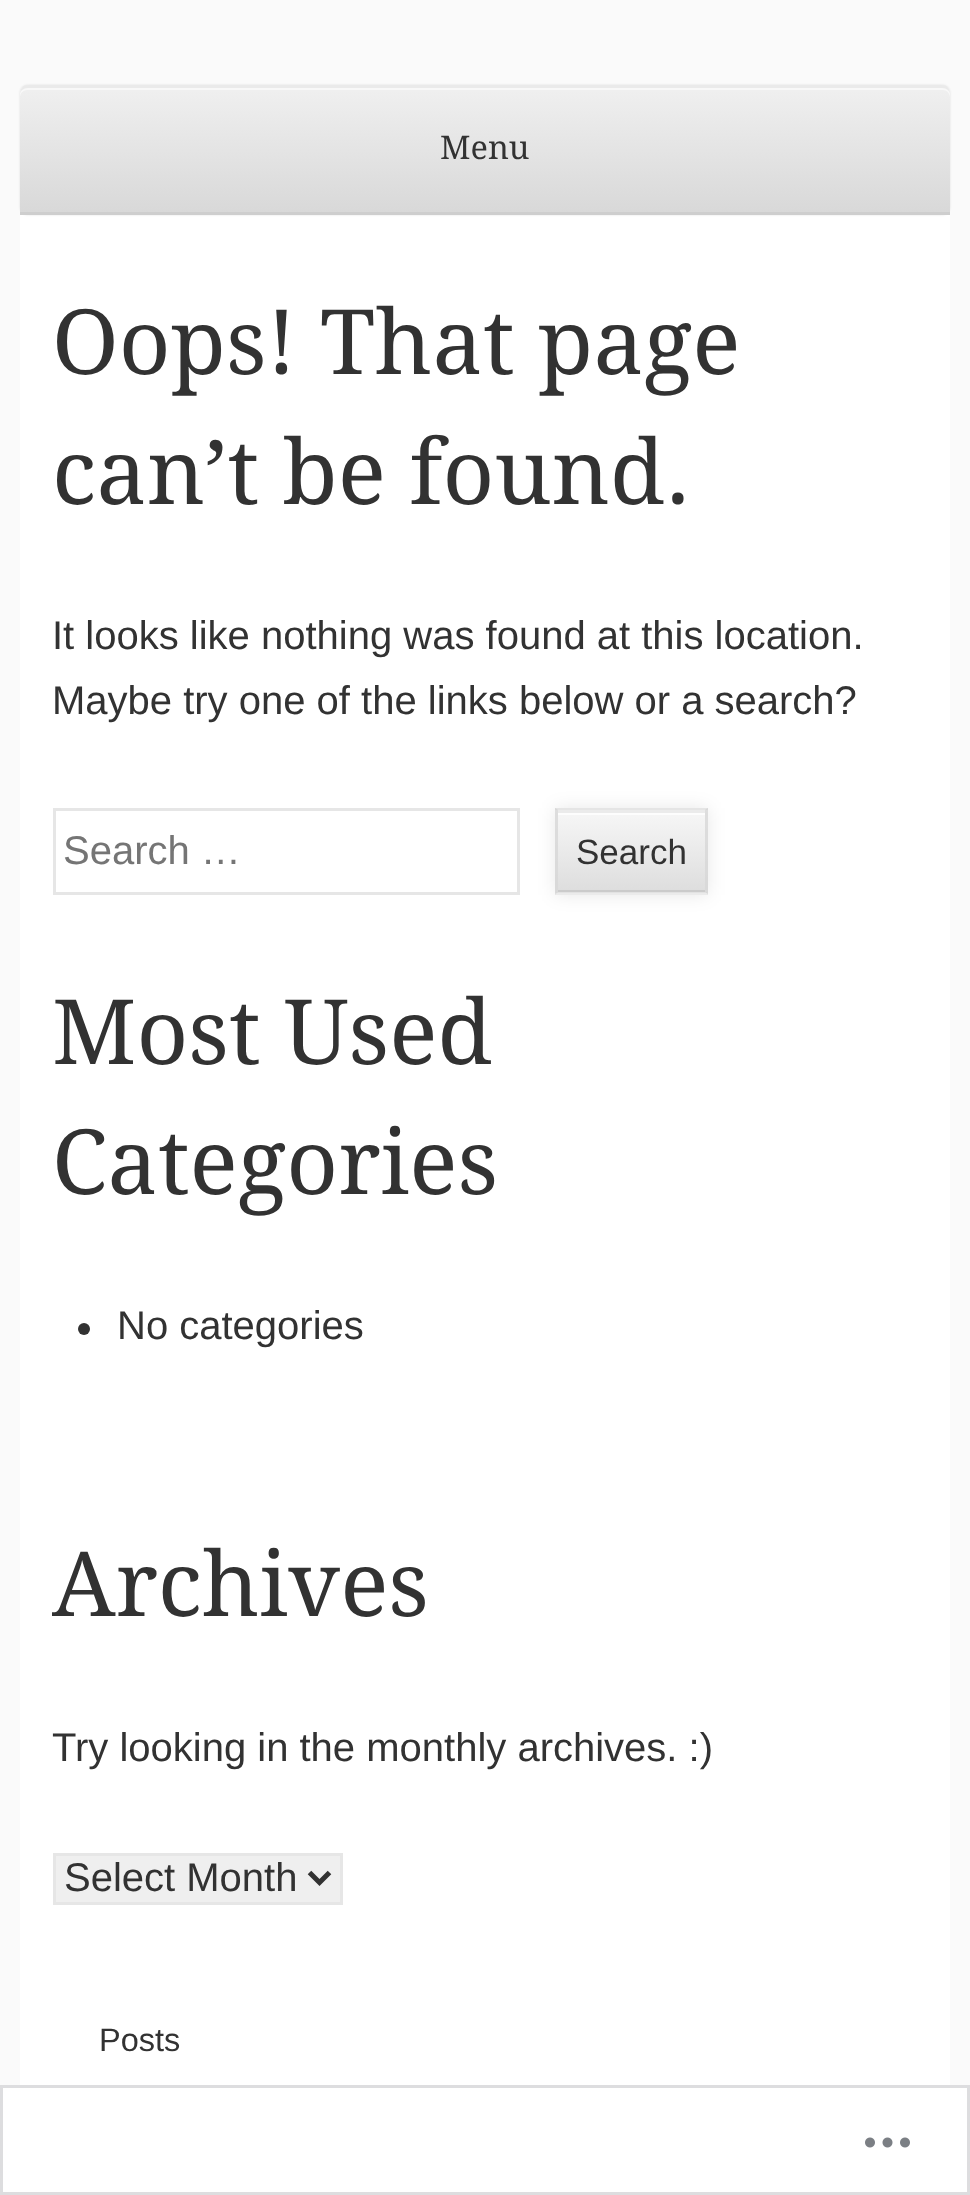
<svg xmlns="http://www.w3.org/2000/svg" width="970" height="2195">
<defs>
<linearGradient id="g1" gradientUnits="userSpaceOnUse" x1="485" y1="85" x2="485" y2="215"><stop offset="0" stop-color="#f0f0f0" stop-opacity="0.8"/><stop offset="1" stop-color="#d2d2d2" stop-opacity="0.8"/></linearGradient>
<linearGradient id="g2" gradientUnits="userSpaceOnUse" x1="631" y1="728" x2="631" y2="810"><stop offset="0" stop-color="#f7f7f7"/><stop offset="1" stop-color="#ddd"/></linearGradient>
<linearGradient id="g3" gradientUnits="userSpaceOnUse" x1="631" y1="810" x2="631" y2="893"><stop offset="0" stop-color="#f7f7f7"/><stop offset="1" stop-color="#ddd"/></linearGradient>
</defs>
<rect width="100%" height="100%" fill="#fafafa"/>
<rect x="3" y="2088" width="964" height="104" fill="#fff"/>
<path d="M28 85h914c4.5 0 8 3.5 8 8v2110h-930v-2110c0-4.5 3.5-8 8-8z" fill="#fff"/>
<rect x="20" y="85" width="930" height="130" rx="8" fill="#0000001a" filter="blur(1px)"/>
<path d="M28 85h914c4.5 0 8 3.5 8 8v122h-930v-122c0-4.5 3.5-8 8-8z" fill="#f0f0f0"/>
<path d="M28 85h914c4.5 0 8 3.5 8 8v122h-930v-122c0-4.5 3.5-8 8-8z" fill="url(#g1)"/>
<rect x="20" y="212" width="930" height="3" fill="#cecece"/>
<path d="M28 90h914c5 0 8 3 8 8v-5c0-4-4-8-8-8h-914c-4 0-8 4-8 8v5c0-5 3-8 8-8z" fill="#fafafacc"/>
<path d="M28 88h914c5 0 8 3 8 7c0-5-2-10-8-10h-914c-6 0-8 5-8 10c0-4 3-7 8-7z" fill="#e6e6e6cc"/>
<text x="440" y="159" style="font-family:Droid Serif;font-size:32.5px;fill:#323232">Menu</text>
<text x="52" y="374" style="font-family:Droid Serif;font-size:90px;fill:#323232">Oops! That page</text>
<text x="52" y="504" style="font-family:Droid Serif;font-size:90px;fill:#323232">can’t be found.</text>
<text x="52" y="649" style="font-family:Liberation Sans;font-size:40px;fill:#323232">It looks like nothing was found at this location.</text>
<text x="52" y="714" style="font-family:Liberation Sans;font-size:40px;fill:#323232">Maybe try one of the links below or a search?</text>
<rect x="54.5" y="809.5" width="464" height="84" fill="none" stroke="#e6e6e6" stroke-width="3"/>
<text x="63" y="864" style="font-family:Liberation Sans;font-size:40px;fill:#757575">Search …</text>
<rect x="555" y="808" width="153" height="87" fill="#00000017" filter="blur(9px)"/>
<rect x="555" y="893" width="153" height="2" fill="#f7f7f7"/>
<rect x="555" y="808" width="153" height="2" fill="url(#g2)"/>
<rect x="555" y="810" width="153" height="83" fill="url(#g3)"/>
<rect x="558" y="890" width="147" height="3" fill="#cbcbcb"/>
<rect x="558" y="813" width="147" height="2" fill="#fdfdfd"/>
<rect x="558" y="810" width="147" height="3" fill="#ebebeb"/>
<path d="M555 808h153l-3 2h-147z" fill="#e5e5e5"/>
<path d="M708 808v87l-3-3v-82z" fill="#d7d7d7cc"/>
<path d="M708 895h-153l3-3h147z" fill="#e7e7e7cc"/>
<path d="M555 895v-87l3 2v82z" fill="#d7d7d7cc"/>
<text x="576" y="864" style="font-family:Liberation Sans;font-size:35px;fill:#323232">Search</text>
<text x="52" y="1064" style="font-family:Droid Serif;font-size:90px;fill:#323232">Most Used</text>
<text x="52" y="1194" style="font-family:Droid Serif;font-size:90px;fill:#323232">Categories</text>
<circle cx="84" cy="1329" r="6" fill="#323232"/>
<text x="117" y="1339" style="font-family:Liberation Sans;font-size:40px;fill:#323232">No categories</text>
<text x="52" y="1616" style="font-family:Droid Serif;font-size:90px;fill:#323232">Archives</text>
<text x="52" y="1761" style="font-family:Liberation Sans;font-size:40px;fill:#323232">Try looking in the monthly archives. :)</text>
<rect x="54.5" y="1854.5" width="287" height="49" fill="#efefef" stroke="#e6e6e6" stroke-width="3"/>
<path d="M309.5 1872.5l10 10l10-10" fill="none" stroke="#323232" stroke-width="5"/>
<text x="64" y="1891" style="font-family:Liberation Sans;font-size:40px;fill:#323232">Select Month</text>
<text x="99" y="2051" style="font-family:Liberation Sans;font-size:32.5px;fill:#323232">Posts</text>
<rect x="1.5" y="2086.5" width="967" height="107" fill="none" stroke="#dddddf" stroke-width="3"/>
<image x="865" y="2137" width="45" height="11" href="media/1.png"/>
</svg>
